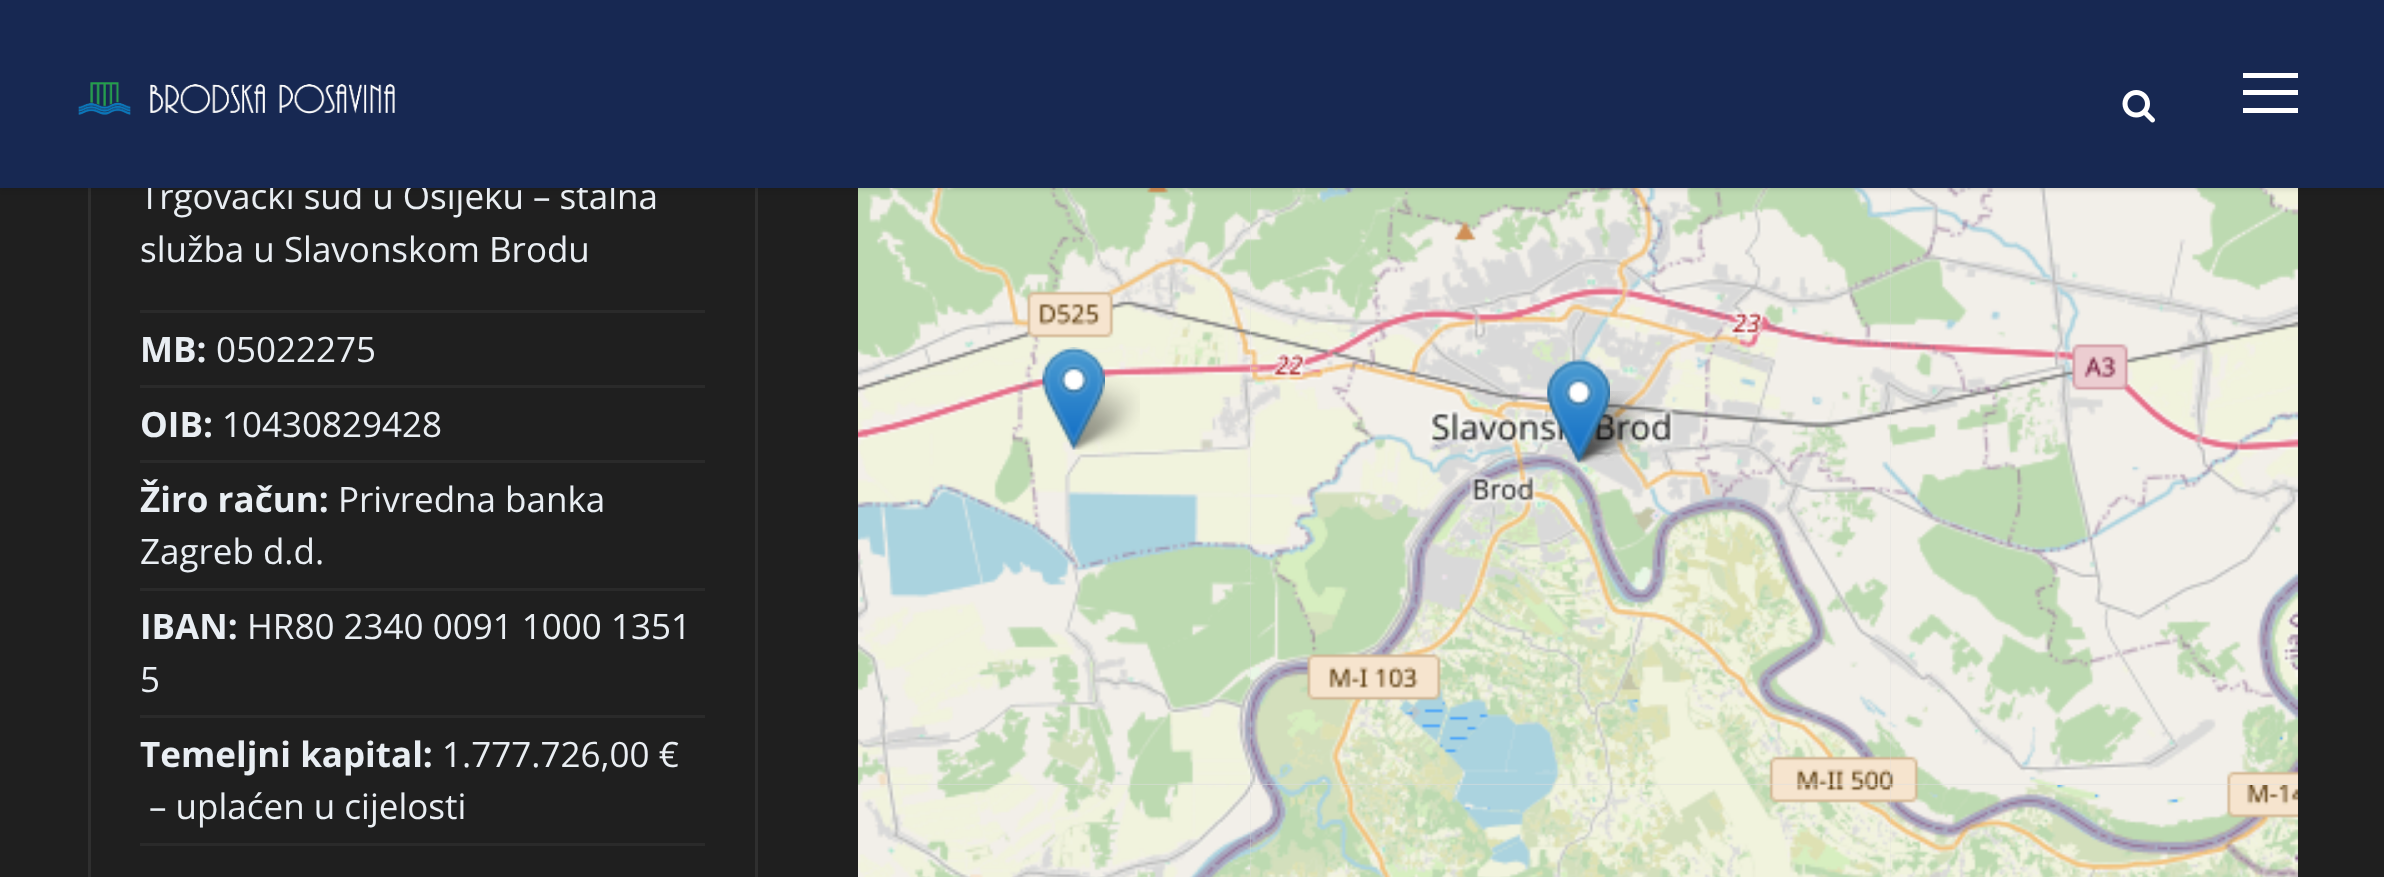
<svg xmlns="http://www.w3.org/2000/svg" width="2384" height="877">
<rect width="100%" height="100%" fill="#1f1f1f"/>
<rect x="89.5" y="-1.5" width="667" height="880" fill="none" stroke="#2f2f2f" stroke-width="3"/>
<rect x="858" y="188" width="1440" height="689" fill="#ddd"/>
<image x="1249" y="188" width="641" height="598" href="media/4.png"/>
<image x="858" y="188" width="392" height="597" href="media/3.png"/>
<image x="1889" y="188" width="409" height="598" href="media/5.png"/>
<rect y="3" width="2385" height="187" fill="#0000001a" filter="blur(2.5px)"/>
<text x="140" y="209" style="font-family:Open Sans;font-size:35px;fill:#e9eef3">Trgovački sud u Osijeku – stalna</text>
<rect width="2384" height="188" fill="#172852"/>
<image x="78" y="82" width="317" height="33" href="media/1.png"/>
<image x="2122" y="90" width="33" height="33" href="media/2.png"/>
<rect x="2243" y="73" width="55" height="5" fill="#fff"/>
<rect x="2243" y="90" width="55" height="5" fill="#fff"/>
<rect x="2243" y="108" width="55" height="5" fill="#fff"/>
<text x="140" y="262" style="font-family:Open Sans;font-size:35px;fill:#e9eef3">služba u Slavonskom Brodu</text>
<rect x="140" y="310" width="565" height="3" fill="#2a2a2a"/>
<text x="140" y="362" style="font-family:Open Sans;font-size:35px;font-weight:bold;fill:#e9eef3">MB:</text>
<text x="216" y="362" style="font-family:Open Sans;font-size:35px;fill:#e9eef3">05022275</text>
<rect x="140" y="385" width="565" height="3" fill="#2a2a2a"/>
<text x="140" y="437" style="font-family:Open Sans;font-size:35px;font-weight:bold;fill:#e9eef3">OIB:</text>
<text x="222" y="437" style="font-family:Open Sans;font-size:35px;fill:#e9eef3">10430829428</text>
<rect x="140" y="460" width="565" height="3" fill="#2a2a2a"/>
<text x="140" y="512" style="font-family:Open Sans;font-size:35px;font-weight:bold;fill:#e9eef3">Žiro račun:</text>
<text x="338" y="512" style="font-family:Open Sans;font-size:35px;fill:#e9eef3">Privredna banka</text>
<text x="140" y="564" style="font-family:Open Sans;font-size:35px;fill:#e9eef3">Zagreb d.d.</text>
<rect x="140" y="588" width="565" height="3" fill="#2a2a2a"/>
<text x="140" y="639" style="font-family:Open Sans;font-size:35px;font-weight:bold;fill:#e9eef3">IBAN:</text>
<text x="247" y="639" style="font-family:Open Sans;font-size:35px;fill:#e9eef3">HR80 2340 0091 1000 1351</text>
<text x="140" y="692" style="font-family:Open Sans;font-size:35px;fill:#e9eef3">5</text>
<rect x="140" y="715" width="565" height="3" fill="#2a2a2a"/>
<text x="140" y="767" style="font-family:Open Sans;font-size:35px;font-weight:bold;fill:#e9eef3">Temeljni kapital:</text>
<text x="442" y="767" style="font-family:Open Sans;font-size:35px;fill:#e9eef3">1.777.726,00 €</text>
<text x="149" y="819" style="font-family:Open Sans;font-size:35px;fill:#e9eef3">– uplaćen u cijelosti</text>
<rect x="140" y="843" width="565" height="3" fill="#2a2a2a"/>
<image x="858" y="785" width="392" height="92" href="media/6.png"/>
<image x="1250" y="785" width="640" height="92" href="media/7.png"/>
<image x="1889" y="785" width="409" height="92" href="media/8.png"/>
<image x="1065" y="378" width="75" height="72" href="media/12.png"/>
<image x="1042" y="347" width="63" height="103" href="media/9.png"/>
<image x="1570" y="391" width="75" height="72" href="media/13.png"/>
<image x="1570" y="391" width="75" height="72" href="media/14.png"/>
<image x="1547" y="359" width="63" height="104" href="media/10.png"/>
<image x="1547" y="359" width="63" height="104" href="media/11.png"/>
</svg>
